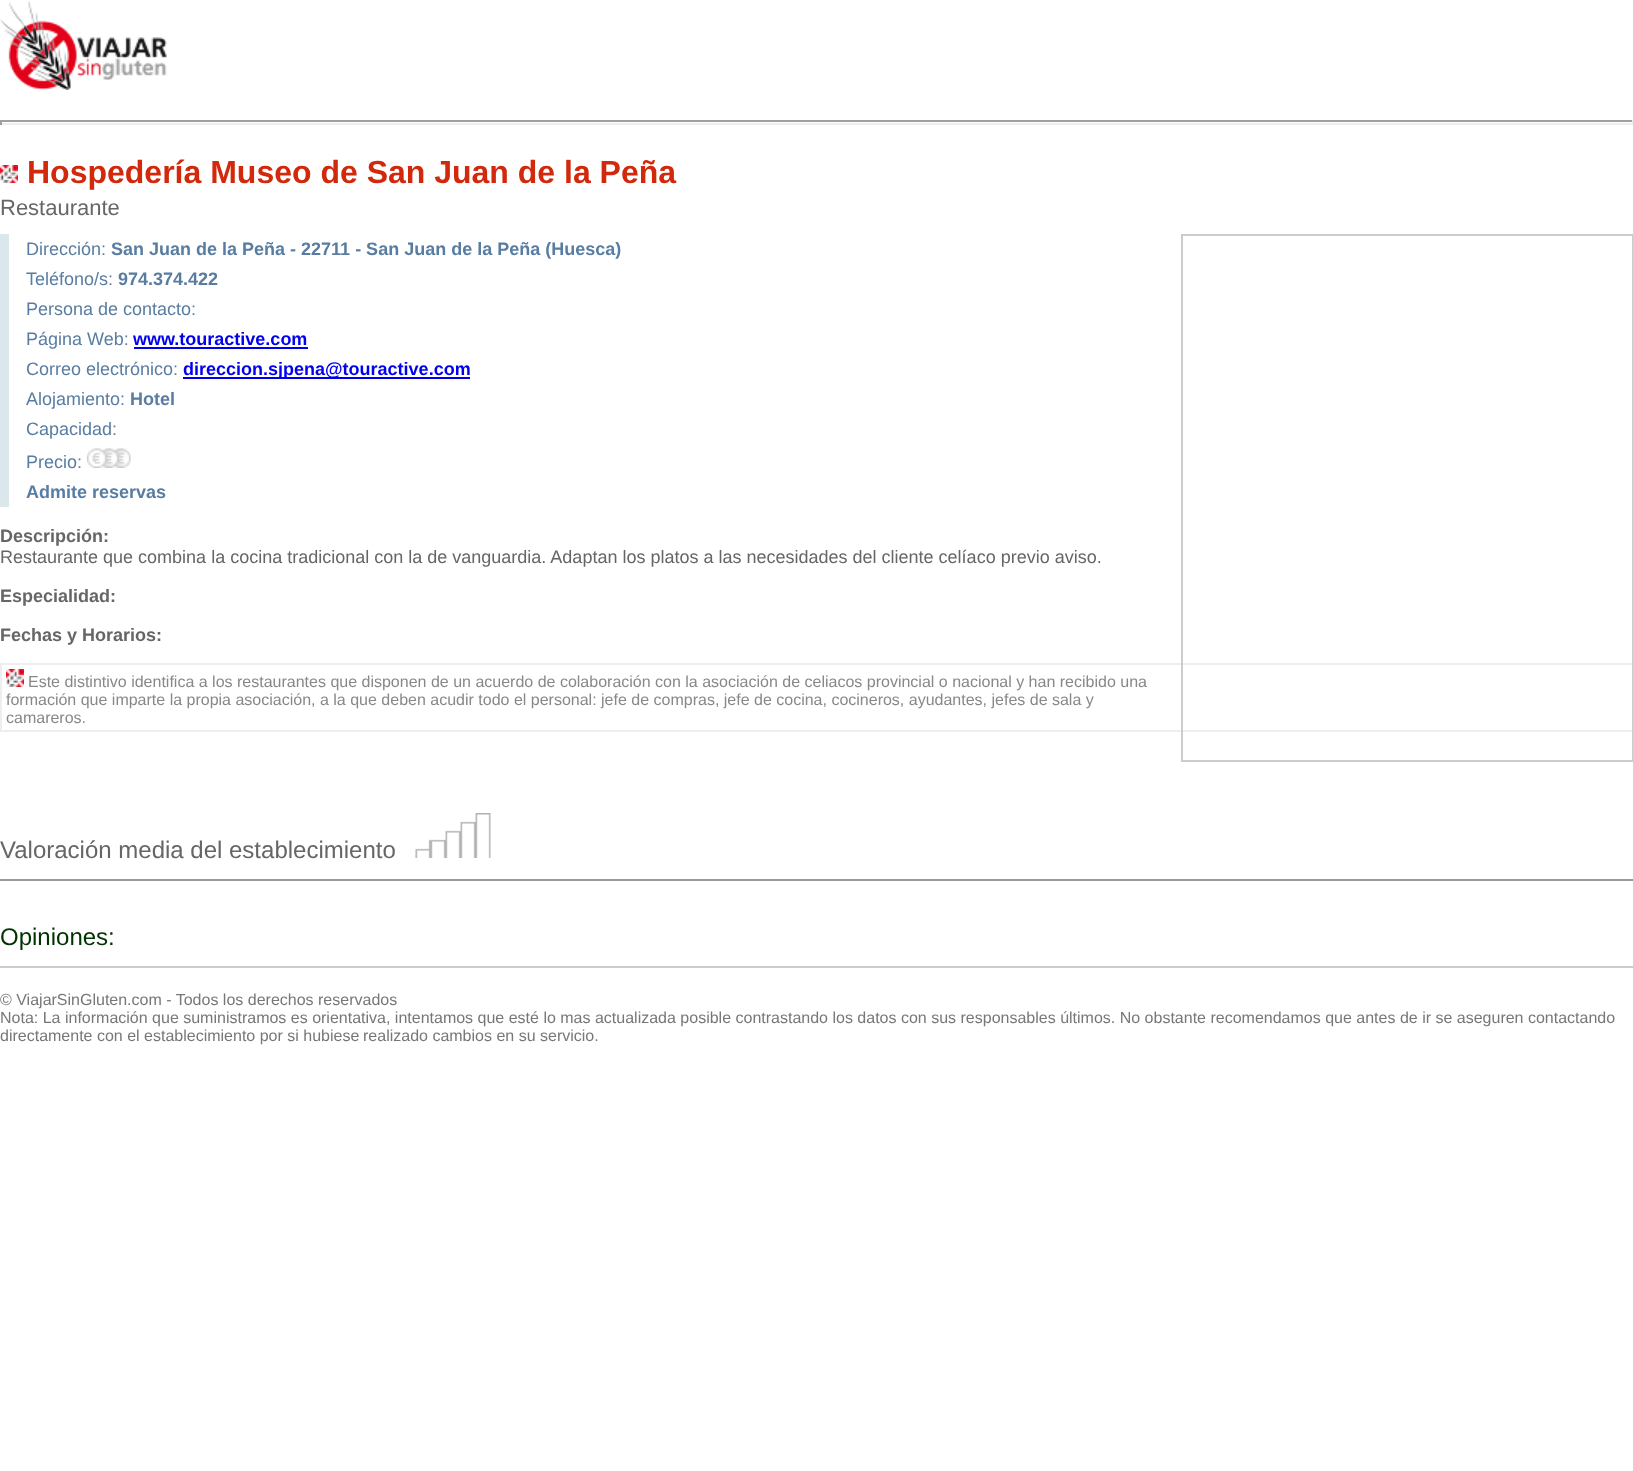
<svg xmlns="http://www.w3.org/2000/svg" width="1633" height="1471">
<rect width="100%" height="100%" fill="#fff"/>
<image x="0" y="1" width="167" height="89" href="media/1.png"/>
<rect y="120" width="1633" height="2" fill="#9f9f9f"/>
<rect x="1632" y="120" width="1" height="5" fill="#eee"/>
<rect y="123" width="1633" height="2" fill="#eee"/>
<rect y="120" width="2" height="5" fill="#9f9f9f"/>
<image x="0" y="165" width="18" height="18" href="media/2.png"/>
<text x="27" y="183" style="font-family:Liberation Sans;font-size:32px;font-weight:bold;fill:#d2280b">Hospedería Museo de San Juan de la Peña</text>
<text x="0" y="215" style="font-family:Liberation Sans;font-size:22px;fill:#666">Restaurante</text>
<rect y="234" width="9" height="273" fill="#dae7eb"/>
<text x="26" y="255" style="font-family:Liberation Sans;font-size:18px;fill:#597da2">Dirección:</text>
<text x="111" y="255" style="font-family:Liberation Sans;font-size:18px;font-weight:bold;fill:#597da2">San Juan de la Peña - 22711 - San Juan de la Peña (Huesca)</text>
<text x="26" y="285" style="font-family:Liberation Sans;font-size:18px;fill:#597da2">Teléfono/s:</text>
<text x="118" y="285" style="font-family:Liberation Sans;font-size:18px;font-weight:bold;fill:#597da2">974.374.422</text>
<text x="26" y="315" style="font-family:Liberation Sans;font-size:18px;fill:#597da2">Persona de contacto:</text>
<text x="26" y="345" style="font-family:Liberation Sans;font-size:18px;fill:#597da2">Página Web:</text>
<text x="133" y="345" style="font-family:Liberation Sans;font-size:18px;font-weight:bold;fill:#00e">www.touractive.com</text>
<rect x="134" y="347" width="174" height="2" fill="#00e"/>
<text x="26" y="375" style="font-family:Liberation Sans;font-size:18px;fill:#597da2">Correo electrónico:</text>
<rect x="183" y="377" width="287" height="2" fill="#00e"/>
<text x="183" y="375" style="font-family:Liberation Sans;font-size:18px;font-weight:bold;fill:#00e">direccion.sjpena@touractive.com</text>
<text x="26" y="405" style="font-family:Liberation Sans;font-size:18px;fill:#597da2">Alojamiento:</text>
<text x="130" y="405" style="font-family:Liberation Sans;font-size:18px;font-weight:bold;fill:#597da2">Hotel</text>
<text x="26" y="435" style="font-family:Liberation Sans;font-size:18px;fill:#597da2">Capacidad:</text>
<text x="26" y="468" style="font-family:Liberation Sans;font-size:18px;fill:#597da2">Precio:</text>
<image x="87" y="448" width="44" height="20" href="media/3.png"/>
<text x="26" y="498" style="font-family:Liberation Sans;font-size:18px;font-weight:bold;fill:#597da2">Admite reservas</text>
<rect x="1" y="664" width="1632" height="67" fill="none" stroke="#eee" stroke-width="2"/>
<rect x="1182" y="235" width="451" height="526" fill="none" stroke="#ccc" stroke-width="2"/>
<text x="0" y="542" style="font-family:Liberation Sans;font-size:18px;font-weight:bold;fill:#666">Descripción:</text>
<text x="0" y="563" style="font-family:Liberation Sans;font-size:18px;fill:#666">Restaurante que combina la cocina tradicional con la de vanguardia. Adaptan los platos a las necesidades del cliente celíaco previo aviso.</text>
<text x="0" y="602" style="font-family:Liberation Sans;font-size:18px;font-weight:bold;fill:#666">Especialidad:</text>
<text x="0" y="641" style="font-family:Liberation Sans;font-size:18px;font-weight:bold;fill:#666">Fechas y Horarios:</text>
<image x="6" y="669" width="18" height="18" href="media/2.png"/>
<text x="28" y="687" style="font-family:Liberation Sans;font-size:16px;fill:#888">Este distintivo identifica a los restaurantes que disponen de un acuerdo de colaboración con la asociación de celiacos provincial o nacional y han recibido una</text>
<text x="6" y="705" style="font-family:Liberation Sans;font-size:16px;fill:#888">formación que imparte la propia asociación, a la que deben acudir todo el personal: jefe de compras, jefe de cocina, cocineros, ayudantes, jefes de sala y</text>
<text x="6" y="723" style="font-family:Liberation Sans;font-size:16px;fill:#888">camareros.</text>
<rect y="879" width="1633" height="2" fill="#999"/>
<text x="0" y="858" style="font-family:Liberation Sans;font-size:24px;fill:#666">Valoración media del establecimiento</text>
<image x="415" y="813" width="76" height="45" href="media/4.png"/>
<rect y="966" width="1633" height="2" fill="#ccc"/>
<text x="0" y="945" style="font-family:Liberation Sans;font-size:24px;fill:#030">Opiniones:</text>
<text x="0" y="1005" style="font-family:Liberation Sans;font-size:16px;fill:#777">© ViajarSinGluten.com - Todos los derechos reservados</text>
<text x="0" y="1023" style="font-family:Liberation Sans;font-size:16px;fill:#777">Nota: La información que suministramos es orientativa, intentamos que esté lo mas actualizada posible contrastando los datos con sus responsables últimos. No obstante recomendamos que antes de ir se aseguren contactando</text>
<text x="0" y="1041" style="font-family:Liberation Sans;font-size:16px;fill:#777">directamente con el establecimiento por si hubiese</text>
<text x="363" y="1041" style="font-family:Liberation Sans;font-size:16px;fill:#777">realizado cambios en su servicio.</text>
</svg>
